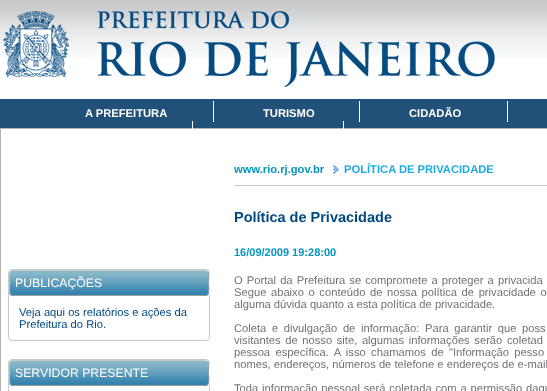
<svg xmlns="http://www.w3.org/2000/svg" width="547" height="391">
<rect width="100%" height="100%" fill="#fff"/>
<image x="0" y="0" width="547" height="58" href="media/1.png"/>
<image x="3" y="11" width="492" height="76" href="media/2.png"/>
<rect y="99" width="547" height="29" fill="#215179"/>
<rect x="213" y="101" width="1" height="21" fill="#fff"/>
<text x="85" y="117" style="font-family:Liberation Sans;font-size:11.2px;font-weight:bold;fill:#fff">A PREFEITURA</text>
<rect x="359" y="101" width="1" height="21" fill="#fff"/>
<text x="263" y="117" style="font-family:Liberation Sans;font-size:11.2px;font-weight:bold;fill:#fff">TURISMO</text>
<rect x="507" y="101" width="1" height="21" fill="#fff"/>
<text x="409" y="117" style="font-family:Liberation Sans;font-size:11.2px;font-weight:bold;fill:#fff">CIDADÃO</text>
<rect x="0.5" y="128.5" width="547" height="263" fill="none" stroke="#b3b3b3"/>
<rect x="192" y="121" width="1" height="8" fill="#fff"/>
<rect x="343" y="121" width="1" height="8" fill="#fff"/>
<rect x="8.5" y="269.5" width="201" height="71" rx="3.5" fill="none" stroke="#c8c9ca"/>
<path d="M11 295c0 1 2 2 3 2h192c2 0 4-2 4-4v-18c0-1-1-3-2-3l1 2v18c0 2-2 4-4 4h-192z" fill="#fff"/>
<rect x="9" y="270" width="200" height="26" rx="4" fill="#d4d4d4"/>
<image x="9" y="271" width="200" height="25" href="media/3.png"/>
<path d="M207.5 271.5c2 2 1 9 1 11.5c0 3 2 11.5-3 12.5h-192.5l-2.5-1" fill="none" stroke="#9e9e9e"/>
<path d="M10.5 294.5c-2-2-1-9-1-11.5c0-3-2-11.5 3-12.5h192.5l2.5 1" fill="none" stroke="#c8c9ca"/>
<text x="15" y="287" style="font-family:Liberation Sans;font-size:12.25px;fill:#fff">PUBLICAÇÕES</text>
<text x="19" y="316" style="font-family:Liberation Sans;font-size:11.2px;fill:#004980">Veja aqui os relatórios e ações da</text>
<text x="19" y="328" style="font-family:Liberation Sans;font-size:11.2px;fill:#004980">Prefeitura do Rio.</text>
<rect x="8.5" y="359.5" width="201" height="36" rx="3.5" fill="none" stroke="#c8c9ca"/>
<path d="M11 385c0 1 2 2 3 2h192c2 0 4-2 4-4v-18c0-1-1-3-2-3l1 2v18c0 2-2 4-4 4h-192z" fill="#fff"/>
<rect x="9" y="360" width="200" height="26" rx="4" fill="#d4d4d4"/>
<image x="9" y="361" width="200" height="25" href="media/3.png"/>
<path d="M207.5 361.5c2 2 1 9 1 11.5c0 3 2 11.5-3 12.5h-192.5l-2.5-1" fill="none" stroke="#9e9e9e"/>
<path d="M10.5 384.5c-2-2-1-9-1-11.5c0-3-2-11.5 3-12.5h192.5l2.5 1" fill="none" stroke="#c8c9ca"/>
<text x="15" y="377" style="font-family:Liberation Sans;font-size:12.25px;fill:#fff">SERVIDOR PRESENTE</text>
<rect x="234" y="185" width="313" height="1" fill="#c8c9ca"/>
<image x="333" y="165" width="6" height="9" href="media/4.png"/>
<text x="234" y="173" style="font-family:Liberation Sans;font-size:11.2px;font-weight:bold;fill:#0695bf">www.rio.rj.gov.br</text>
<text x="344" y="173" style="font-family:Liberation Sans;font-size:11.2px;font-weight:bold;fill:#1dacdf">POLÍTICA DE PRIVACIDADE</text>
<text x="234" y="222" style="font-family:Liberation Sans;font-size:14.5px;font-weight:bold;fill:#004980">Política de Privacidade</text>
<text x="234" y="256" style="font-family:Liberation Sans;font-size:11px;font-weight:bold;fill:#0695bf">16/09/2009 19:28:00</text>
<text x="234" y="284" word-spacing="1" style="font-family:Liberation Sans;font-size:11.2px;fill:#707276">O Portal da Prefeitura se compromete a proteger a privacida</text>
<text x="234" y="296" word-spacing="1.5" style="font-family:Liberation Sans;font-size:11.2px;fill:#707276">Segue abaixo o conteúdo de nossa política de privacidade o</text>
<text x="234" y="308" style="font-family:Liberation Sans;font-size:11.2px;fill:#707276">alguma dúvida quanto a esta política de privacidade.</text>
<text x="234" y="332" word-spacing="2.5" style="font-family:Liberation Sans;font-size:11.2px;fill:#707276">Coleta e divulgação de informação: Para garantir que poss</text>
<text x="234" y="344" word-spacing="1.5" style="font-family:Liberation Sans;font-size:11.2px;fill:#707276">visitantes de nosso site, algumas informações serão coletad</text>
<text x="234" y="356" word-spacing="2.25" style="font-family:Liberation Sans;font-size:11.2px;fill:#707276">pessoa específica. A isso chamamos de "Informação pesso</text>
<text x="234" y="368" style="font-family:Liberation Sans;font-size:11.2px;fill:#707276">nomes, endereços, números de telefone e endereços de e-mail</text>
<text x="234" y="392" word-spacing="0.75" style="font-family:Liberation Sans;font-size:11.2px;fill:#707276">Toda informação pessoal será coletada com a permissão daqu</text>
</svg>
